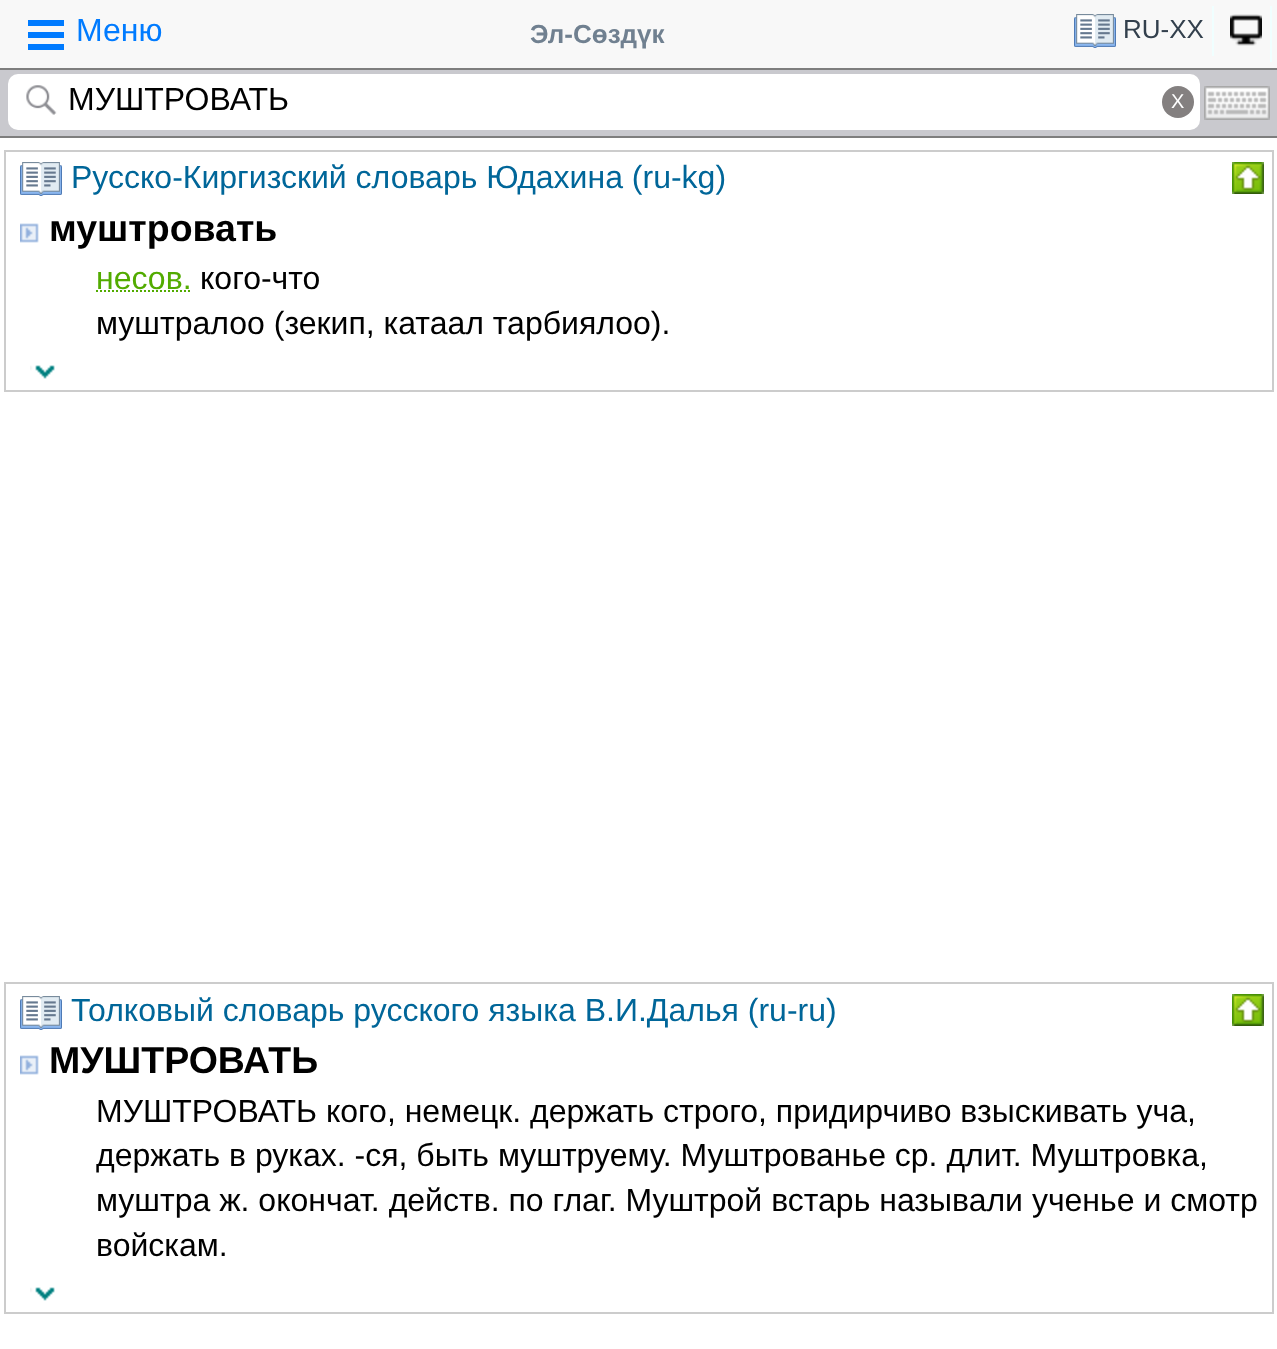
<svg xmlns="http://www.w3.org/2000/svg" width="1277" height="1349">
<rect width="100%" height="100%" fill="#fff"/>
<rect width="1277" height="68" fill="#f8f8f8"/>
<rect y="68" width="1277" height="2" fill="#7e7e7e"/>
<rect x="28" y="20" width="36" height="6" fill="#007bff"/>
<rect x="28" y="32" width="36" height="6" fill="#007bff"/>
<rect x="28" y="44" width="36" height="6" fill="#007bff"/>
<text x="76" y="41" style="font-family:Liberation Sans;font-size:32px;fill:#007bff">Меню</text>
<text x="530" y="43" style="font-family:Liberation Sans;font-size:26px;font-weight:bold;fill:#708090">Эл-Сөздүк</text>
<rect x="1212" y="6" width="2" height="50" fill="#f0ffff"/>
<image x="1074" y="14" width="42" height="34" href="media/1.png"/>
<text x="1123" y="38" style="font-family:Liberation Sans;font-size:26px;fill:#33404d">RU-XX</text>
<rect x="1270" y="6" width="2" height="56" fill="#f0ffff"/>
<image x="1230" y="14" width="32" height="32" href="media/2.png"/>
<rect y="70" width="1277" height="66" fill="#c9c9ce"/>
<rect y="136" width="1277" height="2" fill="#7e7e7e"/>
<rect x="8" y="74" width="1192" height="56" rx="10" fill="#fff"/>
<image x="26" y="85" width="31" height="30" href="media/3.png"/>
<text x="68" y="110" style="font-family:Liberation Sans;font-size:32px;fill:#000">МУШТРОВАТЬ</text>
<circle cx="1178" cy="102" r="16" fill="#848080"/>
<text x="1171" y="108" style="font-family:Liberation Sans;font-size:20px;fill:#fff">X</text>
<image x="1204" y="86" width="66" height="34" href="media/4.png"/>
<rect x="5" y="151" width="1268" height="240" fill="none" stroke="#ccc" stroke-width="2"/>
<image x="20" y="162" width="42" height="34" href="media/5.png"/>
<text x="71" y="188" style="font-family:Liberation Sans;font-size:32px;fill:#069">Русско-Киргизский словарь Юдахина (ru-kg)</text>
<image x="1232" y="162" width="32" height="32" href="media/6.png"/>
<image x="20" y="223" width="19" height="20" href="media/7.png"/>
<text x="49" y="241" style="font-family:Liberation Sans;font-size:37.5px;font-weight:bold;fill:#000">муштровать</text>
<text x="96" y="289" style="font-family:Liberation Sans;font-size:32px;fill:#52ab00">несов.</text>
<path d="M96 291h95.5" fill="none" stroke="#52ab00" stroke-width="2" stroke-dasharray="2 2"/>
<text x="200" y="289" style="font-family:Liberation Sans;font-size:32px;fill:#000">кого-что</text>
<text x="96" y="334" style="font-family:Liberation Sans;font-size:32px;fill:#000">муштралоо (зекип, катаал тарбиялоо).</text>
<image x="30" y="365" width="25" height="14" href="media/8.png"/>
<rect x="5" y="983" width="1268" height="330" fill="none" stroke="#ccc" stroke-width="2"/>
<image x="20" y="996" width="42" height="34" href="media/5.png"/>
<text x="71" y="1021" style="font-family:Liberation Sans;font-size:32px;fill:#069">Толковый словарь русского языка В.И.Далья (ru-ru)</text>
<image x="1232" y="994" width="32" height="32" href="media/6.png"/>
<image x="20" y="1055" width="19" height="20" href="media/7.png"/>
<text x="49" y="1073" style="font-family:Liberation Sans;font-size:37.5px;font-weight:bold;fill:#000">МУШТРОВАТЬ</text>
<text x="96" y="1122" style="font-family:Liberation Sans;font-size:32px;fill:#000">МУШТРОВАТЬ кого, немецк. держать строго, придирчиво взыскивать уча,</text>
<text x="96" y="1166" style="font-family:Liberation Sans;font-size:32px;fill:#000">держать в руках. -ся, быть муштруему. Муштрованье ср. длит. Муштровка,</text>
<text x="96" y="1211" style="font-family:Liberation Sans;font-size:32px;fill:#000">муштра ж. окончат. действ. по глаг. Муштрой встарь называли ученье и смотр</text>
<text x="96" y="1256" style="font-family:Liberation Sans;font-size:32px;fill:#000">войскам.</text>
<image x="30" y="1287" width="25" height="14" href="media/8.png"/>
</svg>
